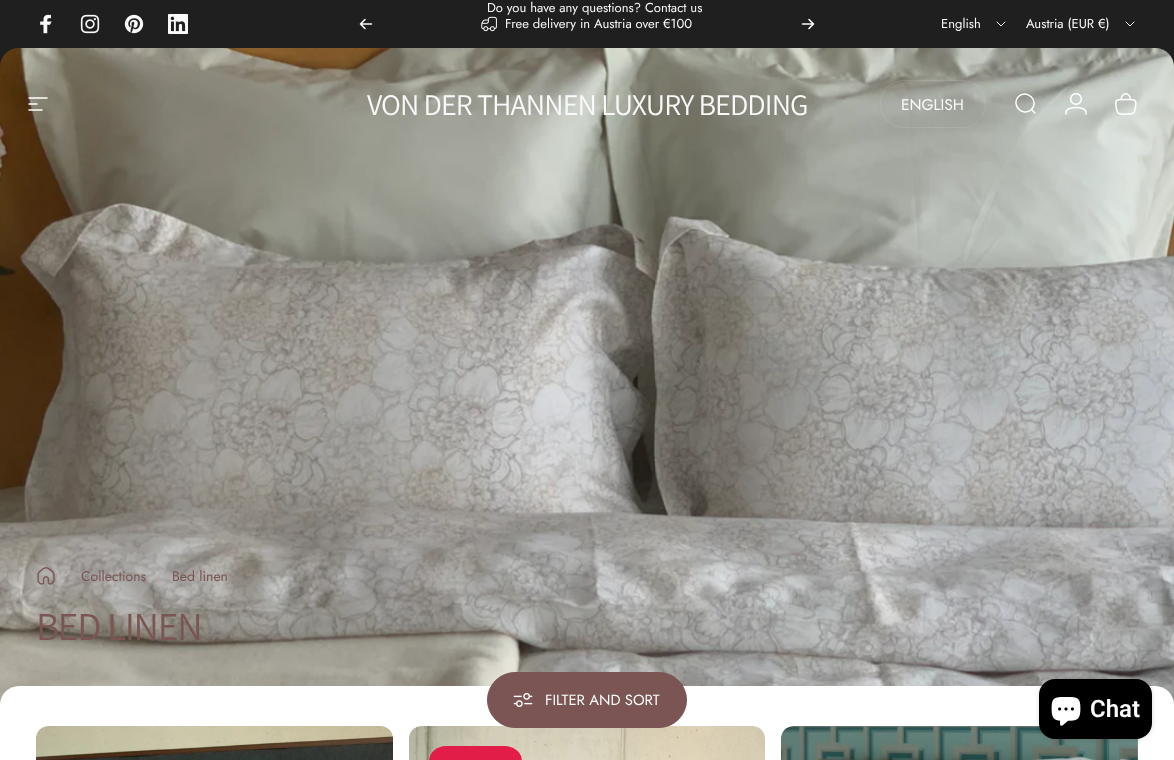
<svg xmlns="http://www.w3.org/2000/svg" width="1174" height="760">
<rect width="100%" height="100%" fill="#fff"/>
<rect width="1174" height="19" fill="#1f1f1f"/>
<path d="M19 0h1136c10.5 0 19 8.5 19 19v48h-1174v-48c0-10.5 8.5-19 19-19z" fill="#1f1f1f"/>
<image x="40" y="14" width="12" height="20" href="media/1.png"/>
<image x="80" y="14" width="20" height="20" href="media/2.png"/>
<image x="124" y="14" width="20" height="20" href="media/3.png"/>
<image x="168" y="14" width="20" height="20" href="media/4.png"/>
<path d="M365 19.5l-4.5 4.5m0 0l4.5 4.5m-4.5-4.5h11" fill="none" stroke="#fafafa" stroke-width="1.6" stroke-linecap="round" stroke-linejoin="round"/>
<text x="487" y="12" style="font-family:Jost;font-size:13px;fill:#fafafa">Do you have any questions? Contact us</text>
<image x="481" y="16" width="16" height="16" href="media/5.png"/>
<text x="505" y="28" style="font-family:Jost;font-size:13px;fill:#fafafa">Free delivery in Austria over €100</text>
<path d="M802.5 24h11m0 0l-4.5-4.5m4.5 4.5l-4.5 4.5" fill="none" stroke="#fafafa" stroke-width="1.6" stroke-linecap="round" stroke-linejoin="round"/>
<text x="941" y="28" style="font-family:Jost;font-size:13px;fill:#fafafa">English</text>
<path d="M997 22l4 4l4-4" fill="none" stroke="#fafafa" stroke-linecap="round" stroke-linejoin="round"/>
<text x="1026" y="28" style="font-family:Jost;font-size:13px;fill:#fafafa">Austria (EUR €)</text>
<path d="M1126 22l4 4l4-4" fill="none" stroke="#fafafa" stroke-linecap="round" stroke-linejoin="round"/>
<image x="0" y="48" width="1174" height="656" href="media/8.png"/>
<path d="M29 98h18m-18 6h8m-8 6h13" fill="none" stroke="#fff" stroke-width="1.5" stroke-linecap="round"/>
<text x="367" y="115" style="font-family:Assistant;font-size:30px;letter-spacing:-0.9px;fill:#fafafa">VON DER THANNEN LUXURY BEDDING</text>
<rect x="880.5" y="80.5" width="105" height="47" rx="23.5" fill="none" stroke="#ffffff1a"/>
<text x="901" y="110" style="font-family:Jost;font-size:15.5px;fill:#fafafa">ENGLISH</text>
<path d="M1035 113l-3.5-3.5m0 0c8-8.5-4.5-21-13-13c-8 8.5 4.5 21 13 13z" fill="none" stroke="#fff" stroke-width="1.5" stroke-linecap="round"/>
<image x="1065" y="93" width="22" height="22" href="media/6.png"/>
<image x="1115" y="93" width="22" height="22" href="media/7.png"/>
<image x="37" y="567" width="18" height="18" href="media/9.png"/>
<path d="M70.5 571l1 .5l-5 10.5h-1z" fill="#7b54541a"/>
<text x="81" y="581" style="font-family:Jost;font-size:14px;fill:#7b5454">Collections</text>
<path d="M161 571l1 .5l-5 10.5h-1z" fill="#7b54541a"/>
<text x="172" y="581" style="font-family:Jost;font-size:14px;fill:#7b5454">Bed linen</text>
<text x="36" y="640" style="font-family:Assistant;font-size:39.5px;letter-spacing:-1.25px;fill:#7b5454">BED LINEN</text>
<path d="M19 686h1136c10.5 0 19 8.5 19 19v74h-1174v-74c0-10.5 8.5-19 19-19z" fill="#fff"/>
<rect x="409" y="726" width="356" height="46" rx="12" fill="#f4eded"/>
<image x="409" y="726" width="356" height="34" href="media/12.png"/>
<rect x="487.5" y="672.5" width="199" height="55" rx="27.5" fill="#7b5454" stroke="#7b5454"/>
<image x="513" y="693" width="20" height="14" href="media/10.png"/>
<text x="545" y="705" style="font-family:Jost;font-size:14.75px;fill:#fafafa">FILTER AND SORT</text>
<rect x="36" y="726" width="357" height="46" rx="12" fill="#f4eded"/>
<image x="36" y="726" width="357" height="34" href="media/11.png"/>
<rect x="429" y="746" width="93" height="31" rx="17" fill="#e11d48"/>
<rect x="781" y="726" width="357" height="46" rx="12" fill="#f4eded"/>
<image x="781" y="726" width="357" height="34" href="media/13.png"/>
<rect x="1039" y="679" width="113" height="60" rx="16" fill="#00000026" filter="blur(2.5px)"/>
<rect x="1039" y="679" width="113" height="60" rx="16" fill="#000"/>
<image x="1051" y="697" width="30" height="29" href="media/14.png"/>
<text x="1090" y="717" style="font-family:Roboto;font-size:24px;font-weight:600;fill:#fafafa">Chat</text>
</svg>
